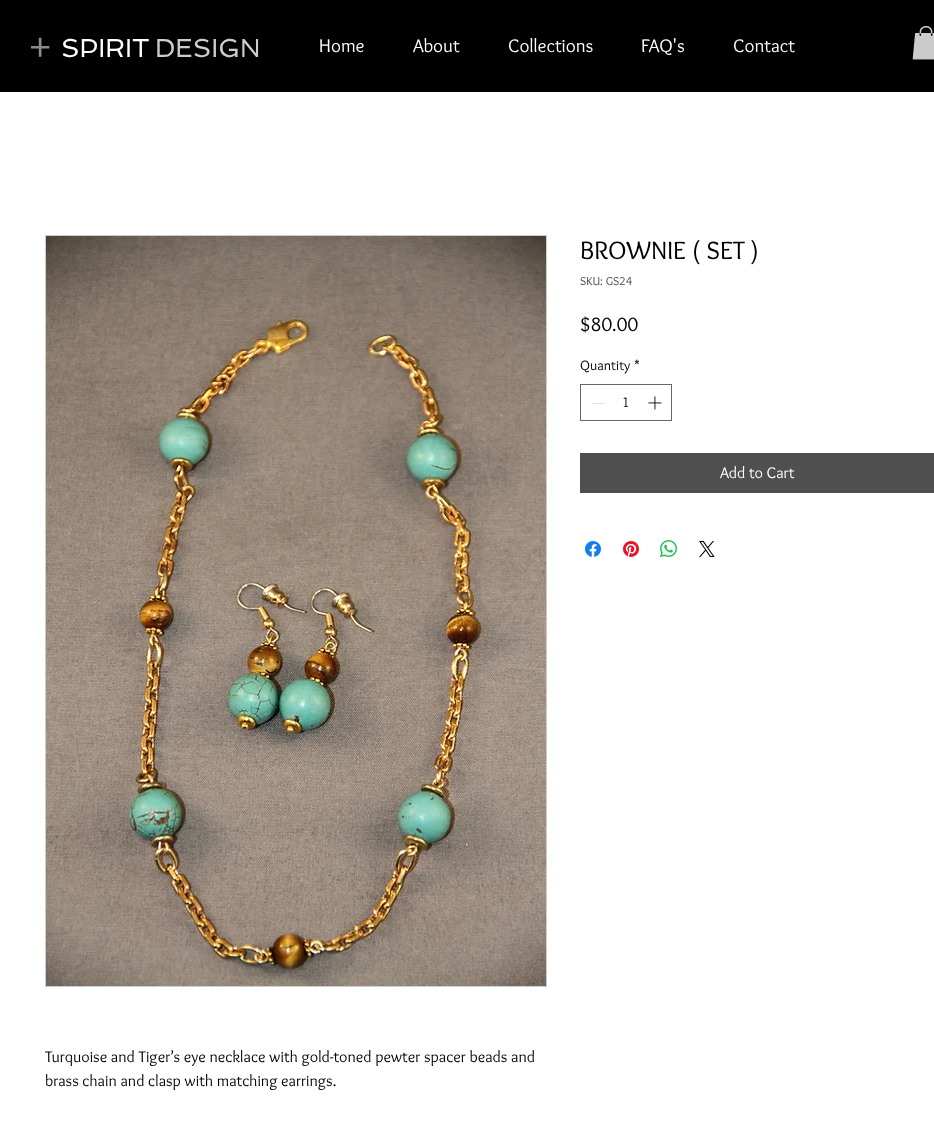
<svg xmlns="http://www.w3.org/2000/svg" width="934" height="1131">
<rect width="100%" height="100%" fill="#fff"/>
<rect width="934" height="92" fill="#000"/>
<text x="29" y="61" style="font-family:Open Sans;font-size:39px;fill:#8b8a8a">+</text>
<text x="61" y="57" style="font-family:Spinnaker;font-size:26px;fill:#fff">SPIRIT</text>
<text x="155" y="57" style="font-family:Spinnaker;font-size:26px;fill:#ccc">DESIGN</text>
<text x="319" y="52" style="font-family:Overlock;font-size:19px;fill:#fff">Home</text>
<text x="413" y="52" style="font-family:Overlock;font-size:19px;fill:#fff">About</text>
<text x="508" y="52" style="font-family:Overlock;font-size:19px;fill:#fff">Collections</text>
<text x="641" y="52" style="font-family:Overlock;font-size:19px;fill:#fff">FAQ's</text>
<text x="733" y="52" style="font-family:Overlock;font-size:19px;fill:#fff">Contact</text>
<image x="912" y="26" width="22" height="34" href="media/1.png"/>
<text x="580" y="259" style="font-family:Overlock;font-size:26px;fill:#000">BROWNIE ( SET )</text>
<text x="580" y="285" style="font-family:Overlock;font-size:12px;fill:#504f4f">SKU: GS24</text>
<text x="580" y="331" style="font-family:Overlock;font-size:20px;fill:#000">$80.00</text>
<text x="580" y="370" style="font-family:Overlock;font-size:14px;fill:#000">Quantity</text>
<text x="634" y="370" style="font-family:Overlock;font-size:14px;fill:#000">*</text>
<rect x="580.5" y="384.5" width="91" height="36" fill="none" stroke="#666"/>
<rect x="592" y="403" width="13" height="1" fill="#e3e3e3"/>
<text x="622" y="407" style="font-family:Overlock;font-size:14px;fill:#000">1</text>
<image x="648" y="396" width="14" height="14" href="media/2.png"/>
<rect x="580" y="453" width="354" height="40" fill="#504f4f"/>
<text x="720" y="478" style="font-family:Overlock;font-size:16px;fill:#fff">Add to Cart</text>
<image x="585" y="541" width="16" height="16" href="media/3.png"/>
<image x="623" y="541" width="16" height="16" href="media/4.png"/>
<image x="660" y="540" width="17" height="17" href="media/5.png"/>
<image x="699" y="541" width="16" height="16" href="media/6.png"/>
<rect x="45.5" y="235.5" width="501" height="751" fill="none" stroke="#ccc"/>
<image x="46" y="236" width="500" height="750" href="media/7.png"/>
<text x="45" y="1062" style="font-family:Overlock;font-size:16px;fill:#000">Turquoise and Tiger’s eye necklace with gold-toned pewter spacer beads and</text>
<text x="45" y="1086" style="font-family:Overlock;font-size:16px;fill:#000">brass chain and clasp with matching earrings.</text>
</svg>
